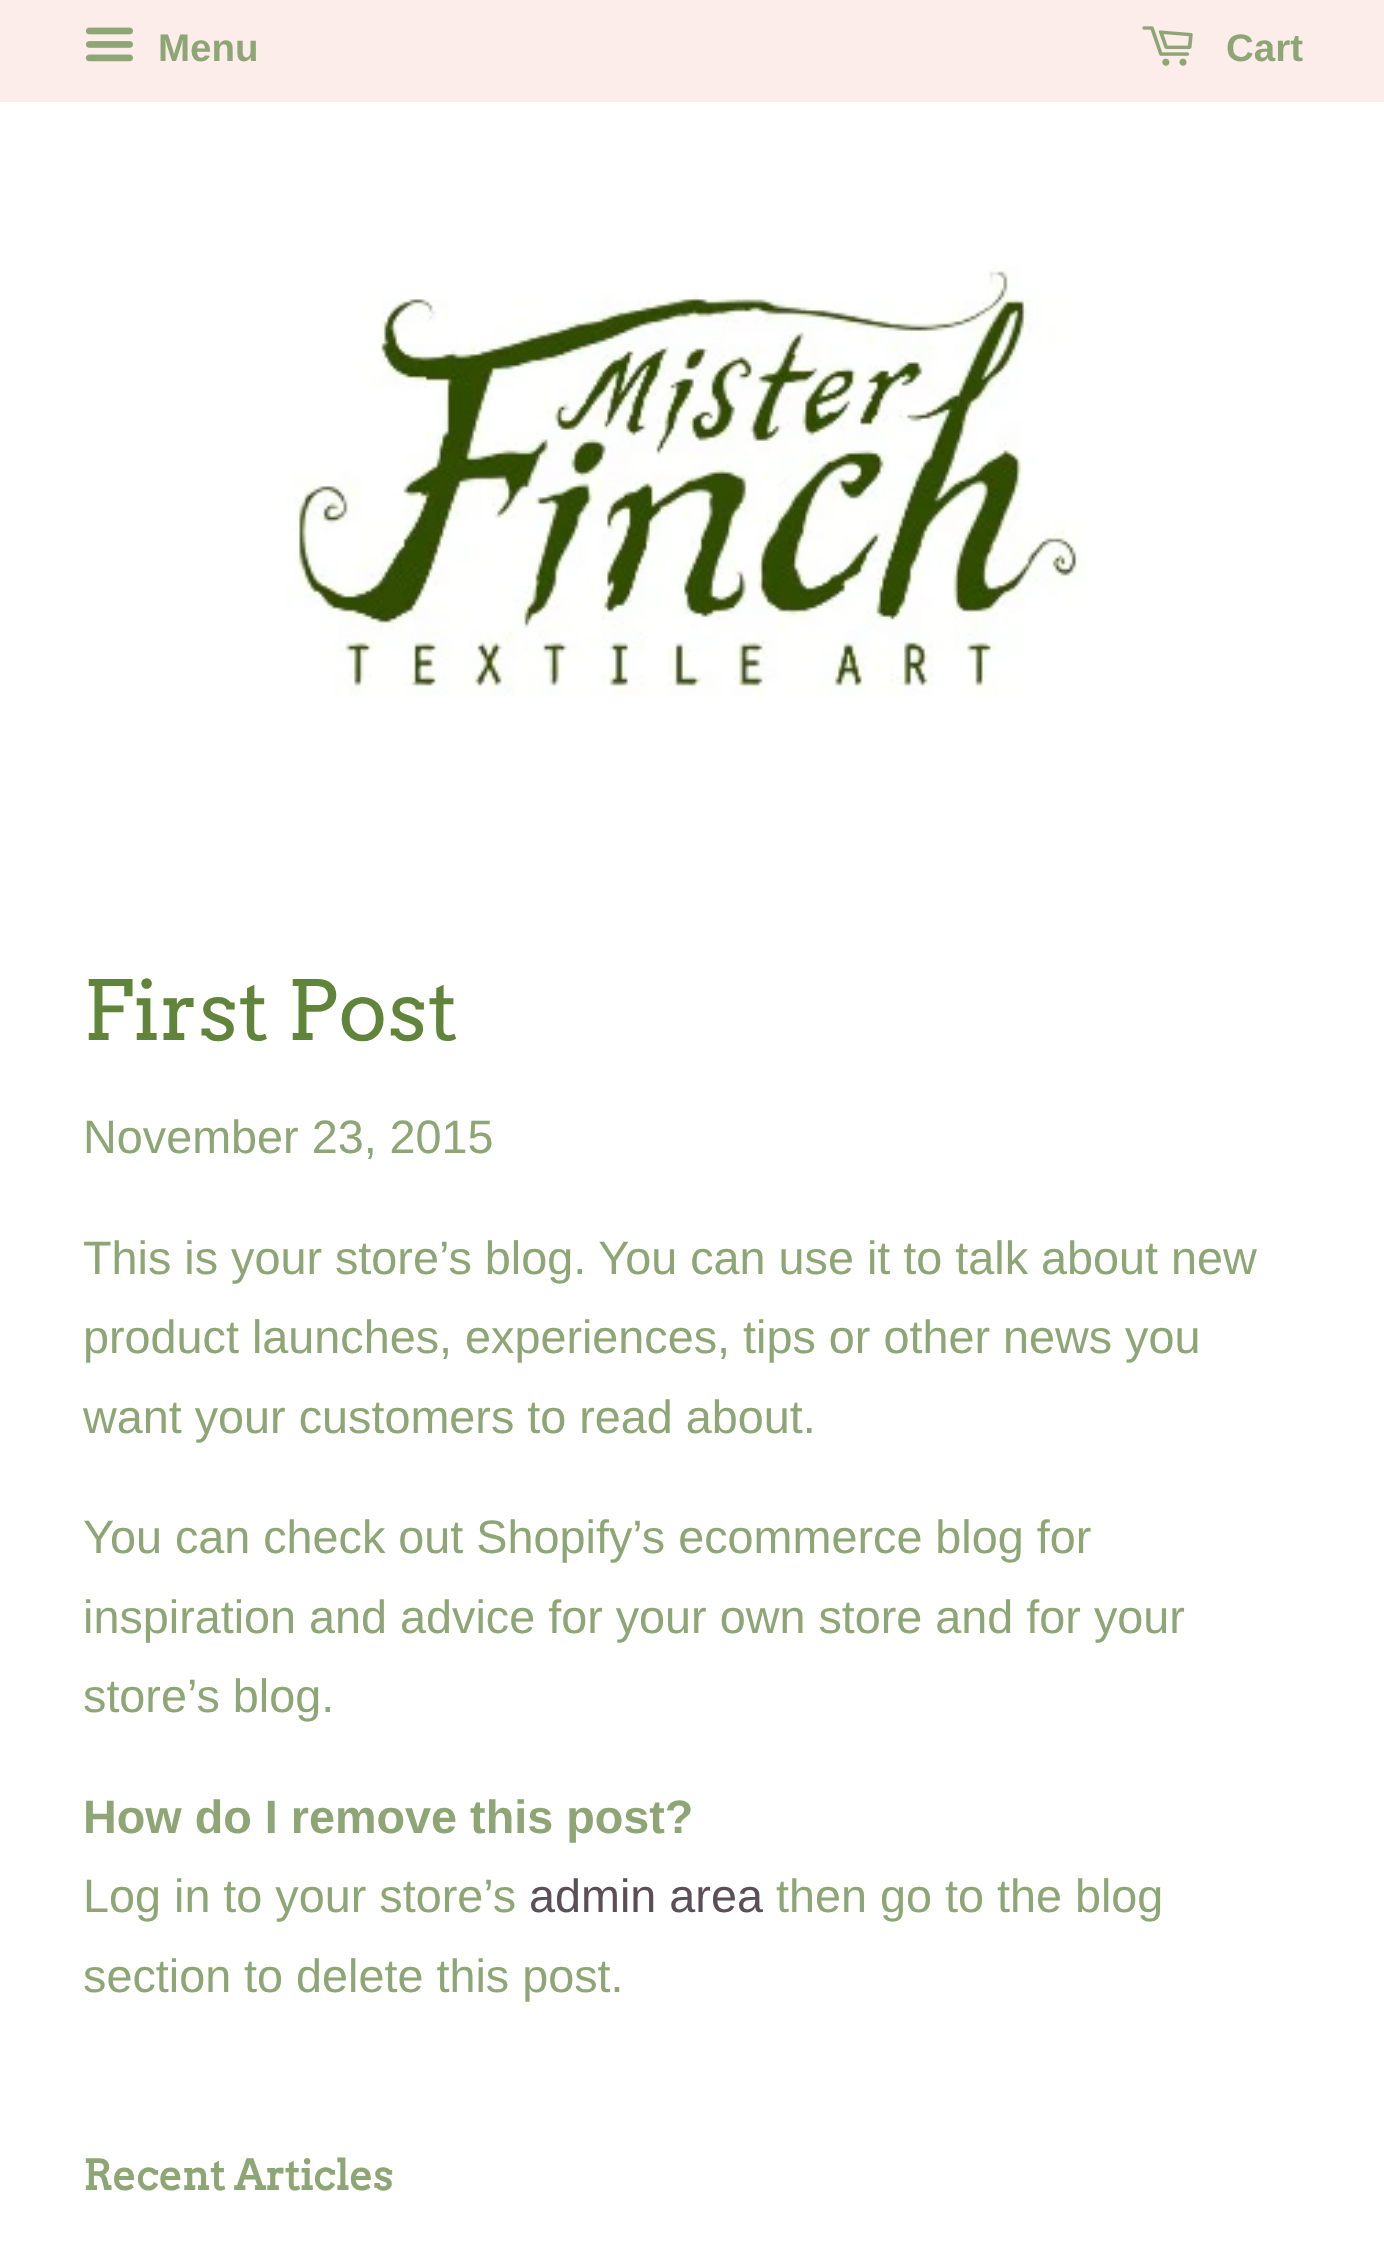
<svg xmlns="http://www.w3.org/2000/svg" width="1384" height="2244">
<rect width="100%" height="100%" fill="#fff"/>
<rect width="1384" height="102" fill="#fcedea"/>
<image x="85" y="27" width="48" height="35" href="media/1.png"/>
<text x="158" y="61" style="font-family:Liberation Sans;font-size:38.5px;font-weight:bold;fill:#8ea675">Menu</text>
<image x="1142" y="26" width="51" height="40" href="media/2.png"/>
<text x="1226" y="61" style="font-family:Liberation Sans;font-size:38.5px;font-weight:bold;fill:#8ea675">Cart</text>
<image x="285" y="266" width="800" height="430" href="media/3.png"/>
<text x="83" y="1040" style="font-family:Arvo;font-size:82.5px;fill:#60853a">First Post</text>
<text x="83" y="1153" style="font-family:Liberation Sans;font-size:46.75px;fill:#8ea675">November 23, 2015</text>
<text x="83" y="1274" style="font-family:Liberation Sans;font-size:46.75px;fill:#8ea675">This is your store’s blog. You can use it to talk about new</text>
<text x="83" y="1353" style="font-family:Liberation Sans;font-size:46.75px;fill:#8ea675">product launches, experiences, tips or other news you</text>
<text x="83" y="1433" style="font-family:Liberation Sans;font-size:46.75px;fill:#8ea675">want your customers to read about.</text>
<text x="83" y="1553" style="font-family:Liberation Sans;font-size:46.75px;fill:#8ea675">You can check out Shopify’s ecommerce blog for</text>
<text x="83" y="1633" style="font-family:Liberation Sans;font-size:46.75px;fill:#8ea675">inspiration and advice for your own store and for your</text>
<text x="83" y="1712" style="font-family:Liberation Sans;font-size:46.75px;fill:#8ea675">store’s blog.</text>
<text x="83" y="1833" style="font-family:Liberation Sans;font-size:46.75px;font-weight:bold;fill:#8ea675">How do I remove this post?</text>
<text x="83" y="1912" style="font-family:Liberation Sans;font-size:46.75px;fill:#8ea675">Log in to your store’s</text>
<text x="529" y="1912" style="font-family:Liberation Sans;font-size:46.75px;fill:#5b4e57">admin area</text>
<text x="776" y="1912" style="font-family:Liberation Sans;font-size:46.75px;fill:#8ea675">then go to the blog</text>
<text x="83" y="1992" style="font-family:Liberation Sans;font-size:46.75px;fill:#8ea675">section to delete this post.</text>
<text x="83" y="2190" style="font-family:Arvo;font-size:41.25px;font-weight:bold;fill:#8ea675">Recent Articles</text>
</svg>
